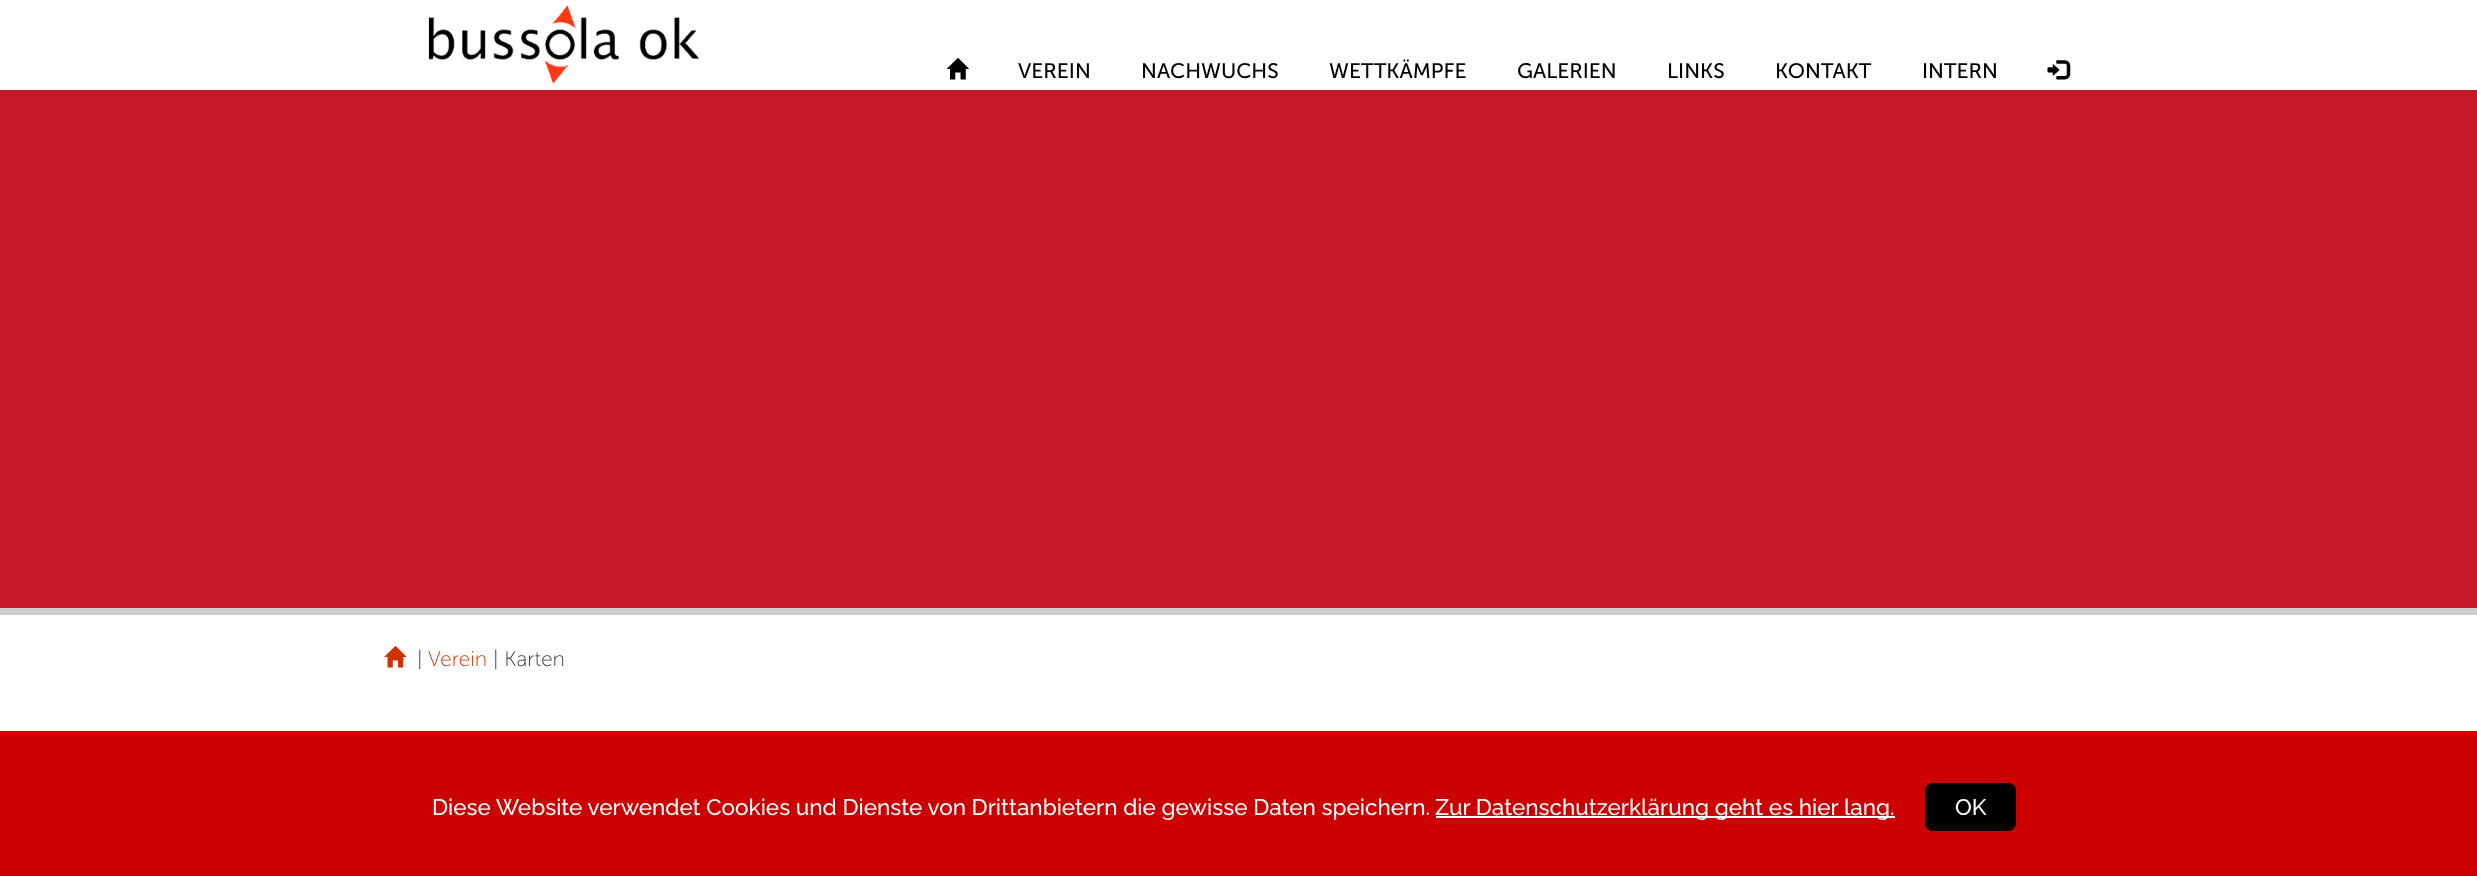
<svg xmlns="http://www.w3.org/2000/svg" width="2477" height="876">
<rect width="100%" height="100%" fill="#fff"/>
<image x="428" y="5" width="271" height="79" href="media/1.png"/>
<image x="946" y="58" width="23" height="22" href="media/2.png"/>
<text x="1018" y="78" style="font-family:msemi;font-size:21px;fill:#000">VEREIN</text>
<text x="1141" y="78" style="font-family:msemi;font-size:21px;fill:#000">NACHWUCHS</text>
<text x="1329" y="78" style="font-family:msemi;font-size:21px;fill:#000">WETTKÄMPFE</text>
<text x="1517" y="78" style="font-family:msemi;font-size:21px;fill:#000">GALERIEN</text>
<text x="1667" y="78" style="font-family:msemi;font-size:21px;fill:#000">LINKS</text>
<text x="1775" y="78" style="font-family:msemi;font-size:21px;fill:#000">KONTAKT</text>
<text x="1922" y="78" style="font-family:msemi;font-size:21px;fill:#000">INTERN</text>
<image x="2047" y="60" width="24" height="20" href="media/3.png"/>
<rect y="90" width="2477" height="518" fill="#c51927"/>
<rect y="608" width="2477" height="7" fill="#ccc"/>
<image x="384" y="646" width="23" height="22" href="media/4.png"/>
<text x="417" y="666" style="font-family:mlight;font-size:21px;font-weight:200;fill:#333">|</text>
<text x="428" y="666" style="font-family:mlight;font-size:21px;font-weight:200;fill:#c30">Verein</text>
<text x="493" y="666" style="font-family:mlight;font-size:21px;font-weight:200;fill:#333">| Karten</text>
<rect y="731" width="2477" height="145" fill="#c00"/>
<text x="432" y="815" style="font-family:Raleway;font-size:22.5px;font-weight:500;fill:#fefefe">Diese Website verwendet Cookies und Dienste von Drittanbietern die gewisse Daten speichern.</text>
<rect x="1436" y="816" width="459" height="2" fill="#fff"/>
<text x="1435" y="815" style="font-family:Raleway;font-size:22.5px;font-weight:500;fill:#fefefe">Zur Datenschutzerklärung geht es hier lang.</text>
<rect x="1925" y="783" width="91" height="48" rx="8" fill="#000"/>
<text x="1955" y="815" style="font-family:Raleway;font-size:22.5px;font-weight:500;fill:#fefefe">OK</text>
</svg>
